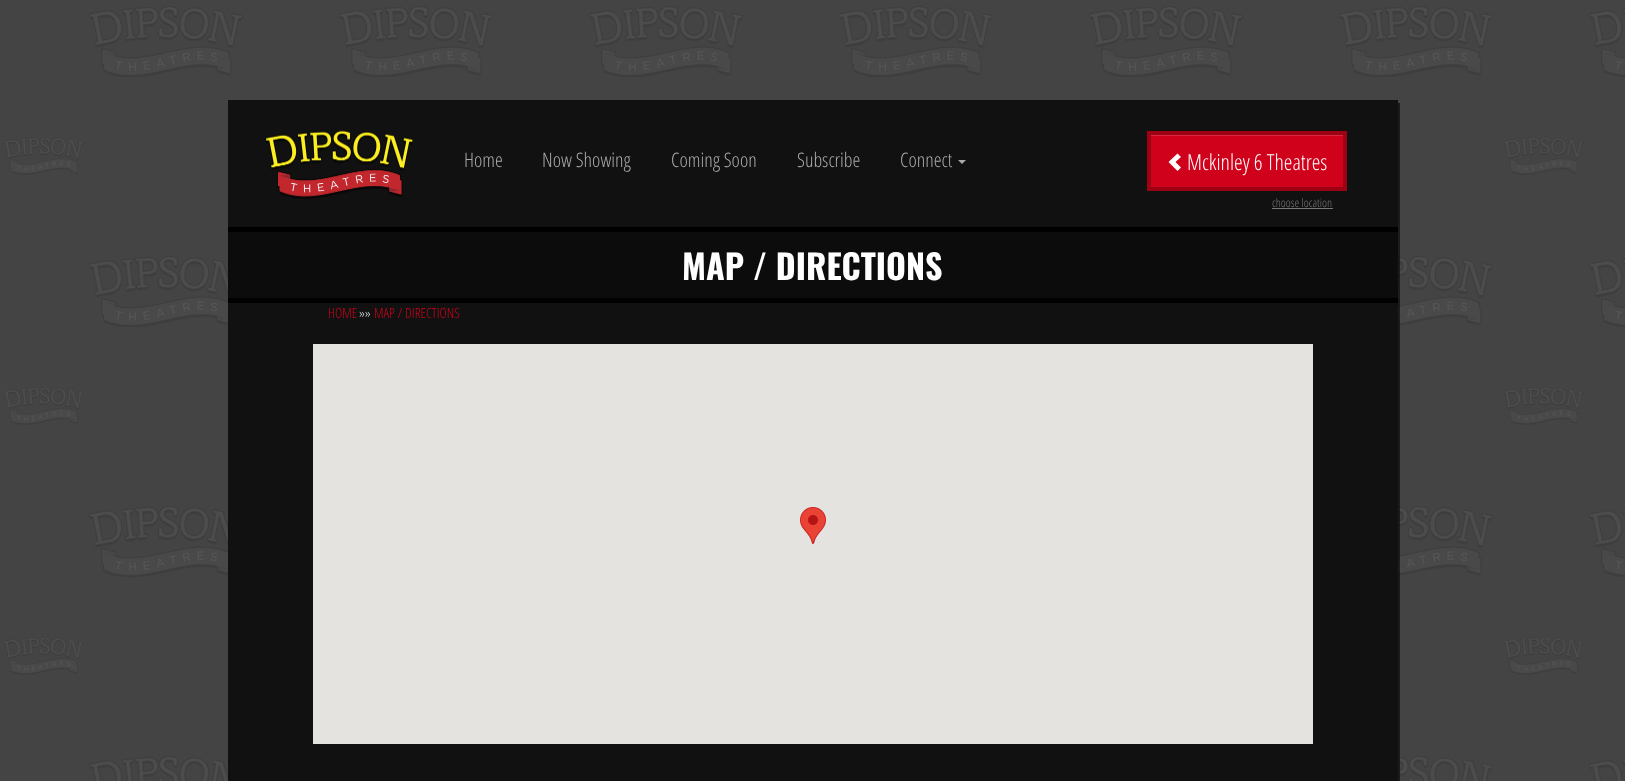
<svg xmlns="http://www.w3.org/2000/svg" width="1625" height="781">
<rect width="100%" height="100%" fill="#444"/>
<image x="4" y="6" width="1621" height="775" href="media/1.png"/>
<rect x="230" y="103" width="1170" height="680" fill="#00000099" filter="blur(0.5px)"/>
<rect x="228" y="100" width="1170" height="681" fill="#111"/>
<image x="265" y="130" width="148" height="69" href="media/2.png"/>
<text x="464" y="167" style="font-family:Open Sans Condensed;font-size:20px;font-weight:300;fill:#aaa">Home</text>
<text x="542" y="167" style="font-family:Open Sans Condensed;font-size:20px;font-weight:300;fill:#aaa">Now Showing</text>
<text x="671" y="167" style="font-family:Open Sans Condensed;font-size:20px;font-weight:300;fill:#aaa">Coming Soon</text>
<text x="797" y="167" style="font-family:Open Sans Condensed;font-size:20px;font-weight:300;fill:#aaa">Subscribe</text>
<text x="900" y="167" style="font-family:Open Sans Condensed;font-size:20px;font-weight:300;fill:#aaa">Connect</text>
<path d="M958 160h8l-4 4z" fill="#aaa"/>
<rect x="1151" y="136" width="192" height="51" fill="#d0021b"/>
<rect x="1151" y="135" width="192" height="1" fill="#d7283d"/>
<rect x="1149" y="133" width="196" height="56" fill="none" stroke="#9d0214" stroke-width="4"/>
<path d="M1168.5 162l9 9l3.5-3.5l-5.5-5.5l5.5-5l-3.5-3.5z" fill="#fff"/>
<text x="1187" y="170" style="font-family:Open Sans Condensed;font-size:22px;font-weight:300;fill:#fff">Mckinley 6 Theatres</text>
<text x="1272" y="207" style="font-family:Open Sans Condensed;font-size:12px;font-weight:300;fill:#777">choose location</text>
<rect x="1272" y="208" width="61" height="1" fill="#777"/>
<rect x="228" y="232" width="1170" height="66" fill="#0c0c0c"/>
<rect x="228" y="227" width="1170" height="5" fill="#000"/>
<rect x="228" y="298" width="1170" height="5" fill="#000"/>
<text x="682" y="280" style="font-family:Oswald;font-size:34px;font-weight:bold;fill:#fff">MAP / DIRECTIONS</text>
<text x="328" y="318" style="font-family:Open Sans Condensed;font-size:14px;font-weight:300;fill:#d0021b">HOME</text>
<text x="359" y="318" style="font-family:Open Sans Condensed;font-size:14px;font-weight:300;fill:#ddd">»»</text>
<text x="374" y="318" style="font-family:Open Sans Condensed;font-size:14px;font-weight:300;fill:#d0021b">MAP / DIRECTIONS</text>
<rect x="313" y="344" width="1000" height="400" fill="#e5e3df"/>
<image x="800" y="507" width="26" height="37" href="media/3.png"/>
</svg>
